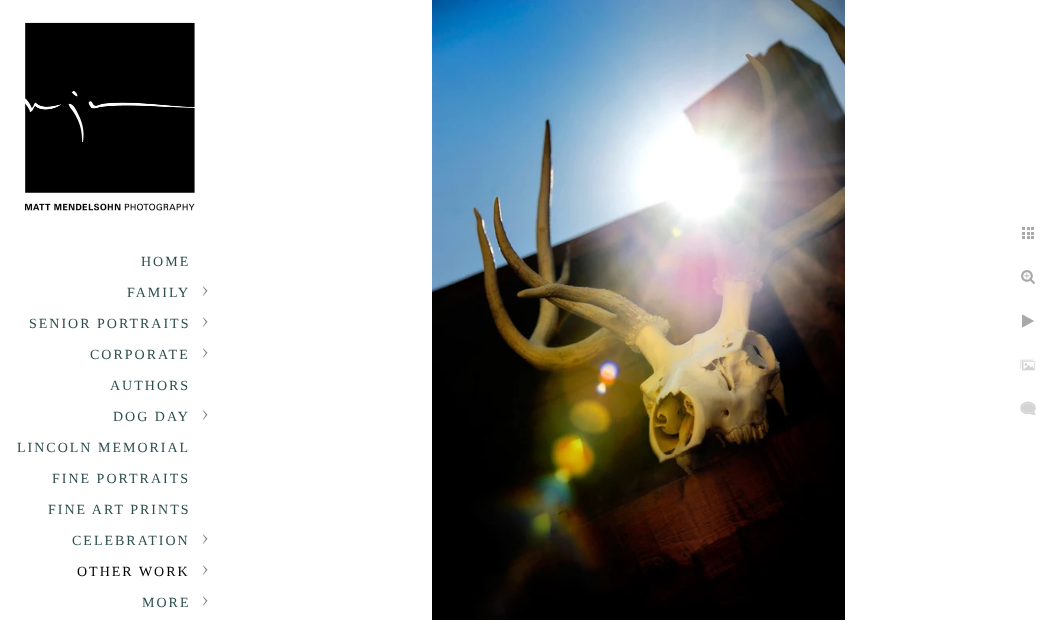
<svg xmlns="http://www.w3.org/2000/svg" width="1055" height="621">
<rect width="100%" height="100%" fill="#fff"/>
<image x="24" y="22" width="171" height="189" href="media/1.png"/>
<text x="141" y="266" style="font-family:Liberation Serif;font-size:14px;letter-spacing:2px;fill:#2f4f4f">HOME</text>
<text x="127" y="297" style="font-family:Liberation Serif;font-size:14px;letter-spacing:2px;fill:#2f4f4f">FAMILY</text>
<image x="202" y="286" width="6" height="10" href="media/2.png"/>
<text x="29" y="328" style="font-family:Liberation Serif;font-size:14px;letter-spacing:2px;fill:#2f4f4f">SENIOR PORTRAITS</text>
<image x="202" y="317" width="6" height="10" href="media/2.png"/>
<text x="90" y="359" style="font-family:Liberation Serif;font-size:14px;letter-spacing:2px;fill:#2f4f4f">CORPORATE</text>
<image x="202" y="348" width="6" height="10" href="media/2.png"/>
<text x="110" y="390" style="font-family:Liberation Serif;font-size:14px;letter-spacing:2px;fill:#2f4f4f">AUTHORS</text>
<text x="113" y="421" style="font-family:Liberation Serif;font-size:14px;letter-spacing:2px;fill:#2f4f4f">DOG DAY</text>
<image x="202" y="410" width="6" height="10" href="media/2.png"/>
<text x="17" y="452" style="font-family:Liberation Serif;font-size:14px;letter-spacing:2px;fill:#2f4f4f">LINCOLN MEMORIAL</text>
<text x="52" y="483" style="font-family:Liberation Serif;font-size:14px;letter-spacing:2px;fill:#2f4f4f">FINE PORTRAITS</text>
<text x="48" y="514" style="font-family:Liberation Serif;font-size:14px;letter-spacing:2px;fill:#2f4f4f">FINE ART PRINTS</text>
<text x="72" y="545" style="font-family:Liberation Serif;font-size:14px;letter-spacing:2px;fill:#2f4f4f">CELEBRATION</text>
<image x="202" y="534" width="6" height="10" href="media/2.png"/>
<text x="77" y="576" style="font-family:Liberation Serif;font-size:14px;letter-spacing:2px;fill:#000">OTHER WORK</text>
<image x="202" y="565" width="6" height="10" href="media/2.png"/>
<text x="142" y="607" style="font-family:Liberation Serif;font-size:14px;letter-spacing:2px;fill:#2f4f4f">MORE</text>
<image x="202" y="596" width="6" height="10" href="media/2.png"/>
<image x="432" y="0" width="413" height="620" href="media/3.png"/>
<image x="1022" y="227" width="12" height="12" href="media/4.png"/>
<image x="1021" y="270" width="14" height="14" href="media/5.png"/>
<image x="1022" y="314" width="12" height="14" href="media/6.png"/>
<image x="1020" y="359" width="15" height="12" href="media/7.png"/>
<image x="1020" y="401" width="16" height="14" href="media/8.png"/>
</svg>
